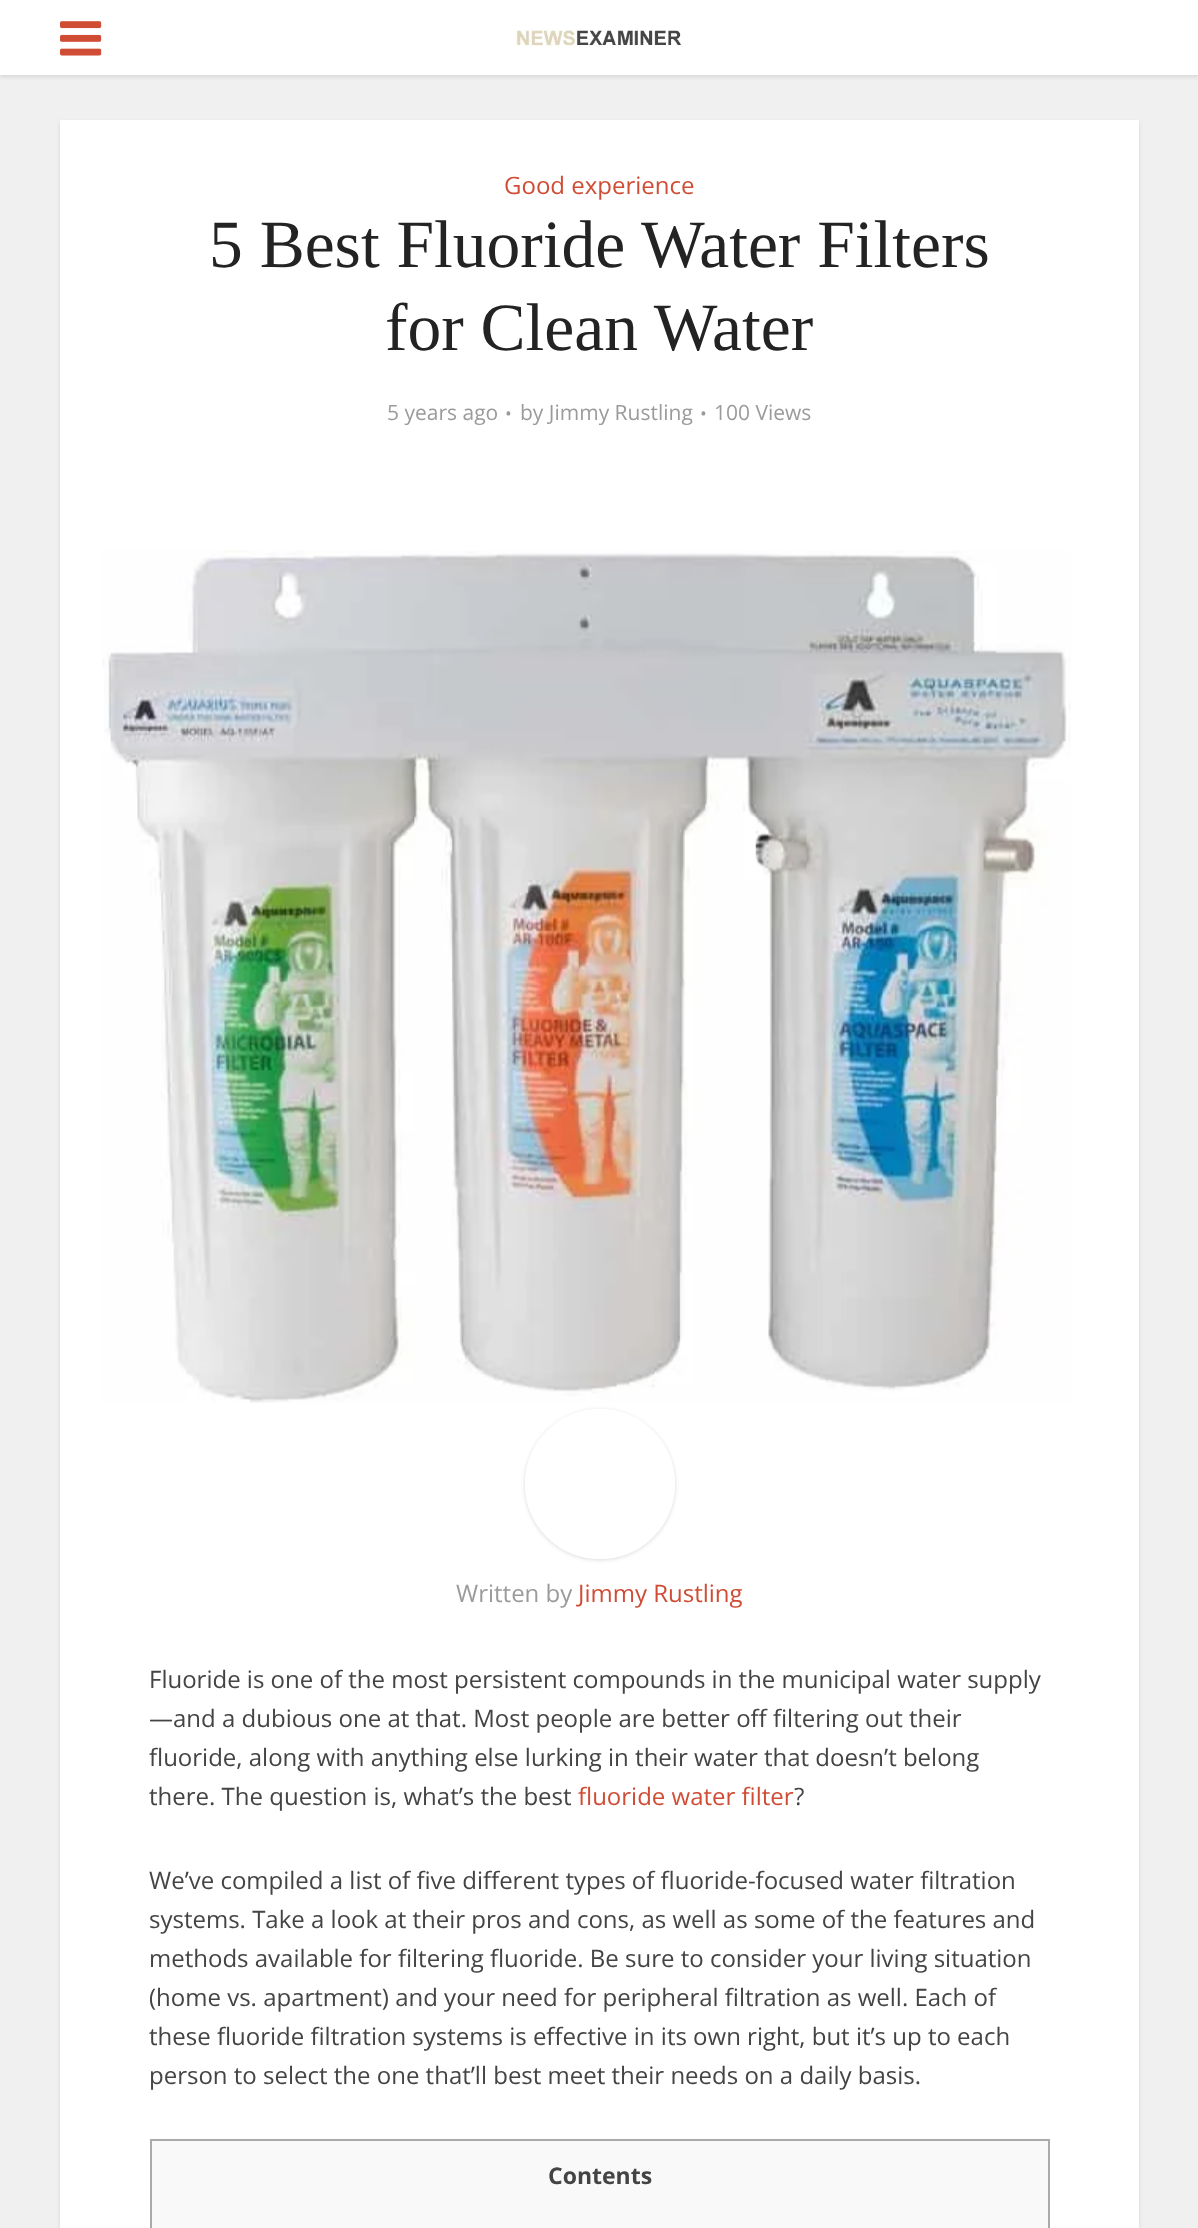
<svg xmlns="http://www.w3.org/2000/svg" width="1198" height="2228">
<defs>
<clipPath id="clip1"><path d="M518 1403h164v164h-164zm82 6c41.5 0 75 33.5 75 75c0 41.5-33.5 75-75 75c-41.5 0-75-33.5-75-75c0-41.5 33.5-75 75-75z" clip-rule="evenodd"/></clipPath>
</defs>
<rect width="100%" height="100%" fill="#f0f0f0"/>
<rect y="2" width="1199" height="75" fill="#0000001a" filter="blur(2px)"/>
<rect width="1198" height="75" fill="#fff"/>
<image x="60" y="21" width="42" height="35" href="media/1.png"/>
<image x="516" y="29" width="166" height="20" href="media/2.png"/>
<rect x="60" y="122" width="1079" height="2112" fill="#0000001a" filter="blur(2px)"/>
<rect x="60" y="120" width="1079" height="2108" fill="#fff"/>
<text x="504" y="194" style="font-family:Open Sans;font-size:24px;fill:#cf4d35">Good experience</text>
<text x="209" y="267" style="font-family:Liberation Serif;font-size:67.5px;fill:#232323">5 Best Fluoride Water Filters</text>
<text x="385" y="350" style="font-family:Liberation Serif;font-size:67.5px;fill:#232323">for Clean Water</text>
<text x="387" y="420" style="font-family:Open Sans;font-size:21px;fill:#9b9b9b">5 years ago</text>
<text x="505" y="420" style="font-family:Open Sans;font-size:18px;fill:#9b9b9b">•</text>
<text x="520" y="420" style="font-family:Open Sans;font-size:21px;fill:#9b9b9b">by Jimmy Rustling</text>
<text x="700" y="420" style="font-family:Open Sans;font-size:18px;fill:#9b9b9b">•</text>
<text x="714" y="420" style="font-family:Open Sans;font-size:21px;fill:#9b9b9b">100 Views</text>
<image x="102" y="550" width="969" height="853" href="media/3.png"/>
<g clip-path="url(#clip1)">
<rect x="525" y="1410" width="150" height="150" rx="75" fill="#00000026" filter="blur(2px)"/>
</g>
<circle cx="600" cy="1484" r="71" fill="none" stroke="#fff" stroke-width="8"/>
<text x="456" y="1602" style="font-family:Open Sans;font-size:24px;fill:#9b9b9b">Written by</text>
<text x="578" y="1602" style="font-family:Open Sans;font-size:24px;fill:#cf4d35">Jimmy Rustling</text>
<text x="149" y="1688" style="font-family:Open Sans;font-size:24px;fill:#444">Fluoride is one of the most persistent compounds in the municipal water supply</text>
<text x="149" y="1727" style="font-family:Open Sans;font-size:24px;fill:#444">—and a dubious one at that. Most people are better off filtering out their</text>
<text x="149" y="1766" style="font-family:Open Sans;font-size:24px;fill:#444">fluoride, along with anything else lurking in their water that doesn’t belong</text>
<text x="149" y="1805" style="font-family:Open Sans;font-size:24px;fill:#444">there. The question is, what’s the best</text>
<text x="578" y="1805" style="font-family:Open Sans;font-size:24px;fill:#cf4d35">fluoride water filter</text>
<text x="794" y="1805" style="font-family:Open Sans;font-size:24px;fill:#444">?</text>
<text x="149" y="1889" style="font-family:Open Sans;font-size:24px;fill:#444">We’ve compiled a list of five different types of fluoride-focused water filtration</text>
<text x="149" y="1928" style="font-family:Open Sans;font-size:24px;fill:#444">systems. Take a look at their pros and cons, as well as some of the features and</text>
<text x="149" y="1967" style="font-family:Open Sans;font-size:24px;fill:#444">methods available for filtering fluoride. Be sure to consider your living situation</text>
<text x="149" y="2006" style="font-family:Open Sans;font-size:24px;fill:#444">(home vs. apartment) and your need for peripheral filtration as well. Each of</text>
<text x="149" y="2045" style="font-family:Open Sans;font-size:24px;fill:#444">these fluoride filtration systems is effective in its own right, but it’s up to each</text>
<text x="149" y="2084" style="font-family:Open Sans;font-size:24px;fill:#444">person to select the one that’ll best meet their needs on a daily basis.</text>
<rect x="151" y="2140" width="898" height="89" fill="#f9f9f9" stroke="#aaa" stroke-width="2"/>
<text x="548" y="2184" style="font-family:Open Sans;font-size:23px;font-weight:bold;fill:#444">Contents</text>
</svg>
